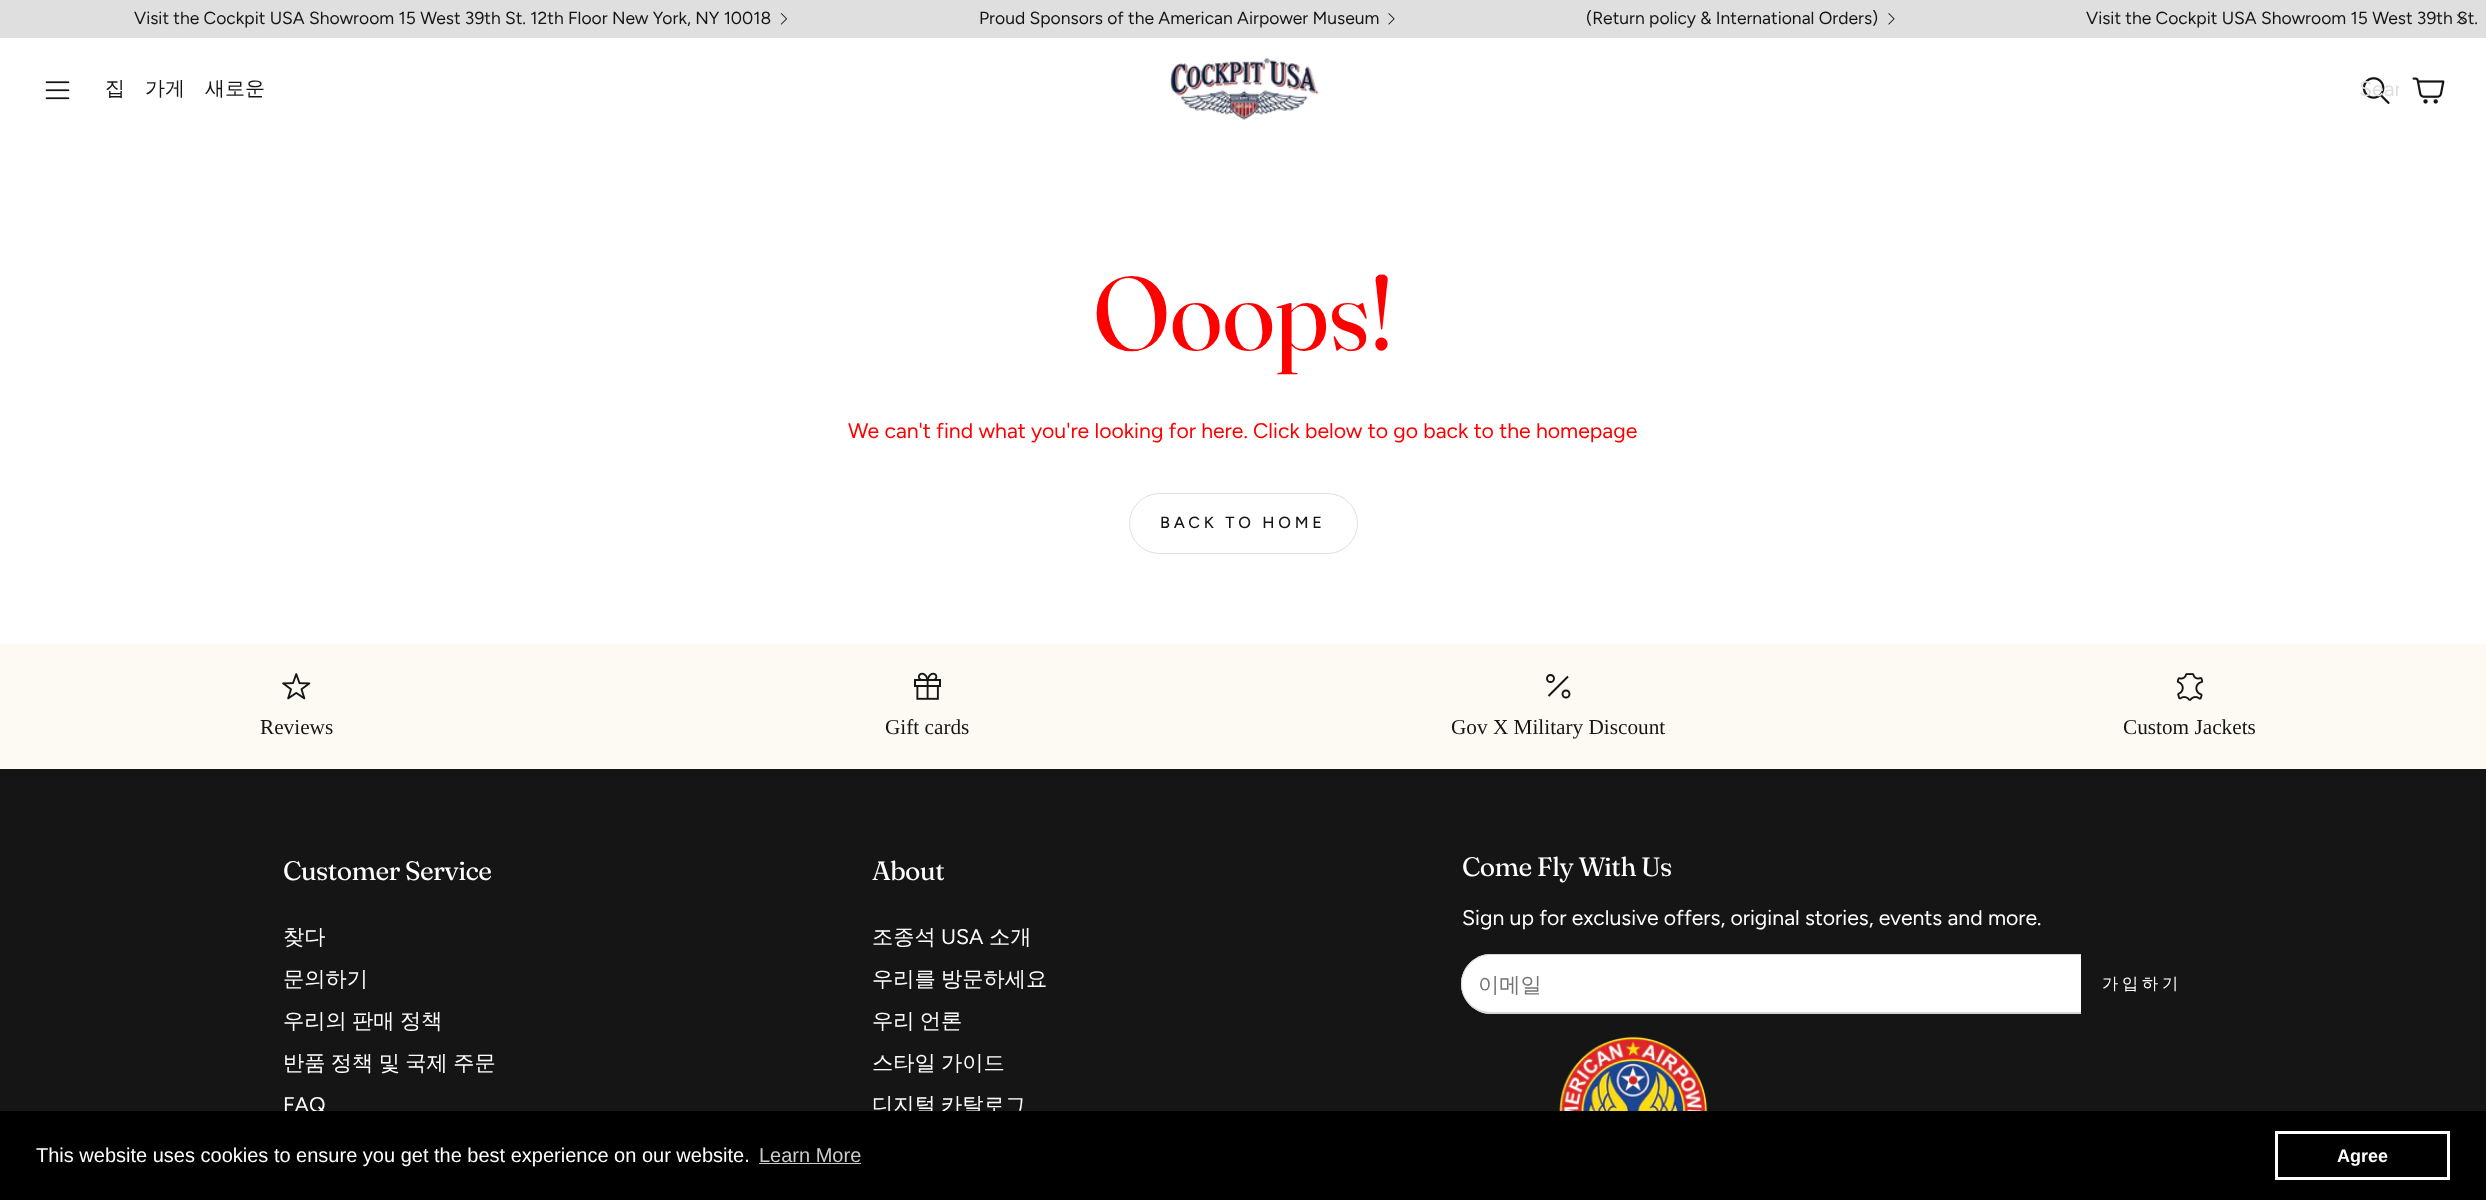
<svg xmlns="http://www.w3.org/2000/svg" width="2486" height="1200">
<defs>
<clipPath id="clip1"><rect x="2359" y="78" width="40" height="23"/></clipPath>
</defs>
<rect width="100%" height="100%" fill="#fff"/>
<rect width="2486" height="38" fill="#dfdfdf"/>
<text x="134" y="24" style="font-family:Figtree;font-size:17.5px;fill:#151515">Visit the Cockpit USA Showroom 15 West 39th St. 12th Floor New York, NY 10018</text>
<image x="780" y="13" width="7" height="12" href="media/1.png"/>
<text x="979" y="24" style="font-family:Figtree;font-size:17.5px;fill:#151515">Proud Sponsors of the American Airpower Museum</text>
<image x="1388" y="13" width="7" height="12" href="media/2.png"/>
<text x="1586" y="24" style="font-family:Figtree;font-size:17.5px;fill:#151515">(Return policy &amp; International Orders)</text>
<image x="1888" y="13" width="7" height="12" href="media/2.png"/>
<text x="2086" y="24" style="font-family:Figtree;font-size:17.5px;fill:#151515">Visit the Cockpit USA Showroom 15 West 39th St.</text>
<image x="2456" y="14" width="10" height="10" href="media/3.png"/>
<image x="45" y="81" width="25" height="19" href="media/4.png"/>
<text x="105" y="95" style="font-family:WenQuanYi Zen Hei;font-size:20px;font-weight:500;fill:#151515">집</text>
<text x="145" y="95" style="font-family:WenQuanYi Zen Hei;font-size:20px;font-weight:500;fill:#151515">가게</text>
<text x="205" y="95" style="font-family:WenQuanYi Zen Hei;font-size:20px;font-weight:500;fill:#151515">새로운</text>
<image x="1170" y="58" width="149" height="62" href="media/5.png"/>
<image x="2362" y="77" width="28" height="27" href="media/6.png"/>
<g clip-path="url(#clip1)">
<text x="2359" y="96" style="font-family:Figtree;font-size:21.25px;fill:#dfdfdf">Sear</text>
</g>
<image x="2412" y="77" width="33" height="27" href="media/7.png"/>
<text x="1093" y="350" style="font-family:Fraunces;font-size:104px;fill:#f00">Ooops!</text>
<text x="848" y="438" style="font-family:Figtree;font-size:21.25px;fill:#f00">We can't find what you're looking for here. Click below to go back to the homepage</text>
<rect x="1129.5" y="493.5" width="228" height="60" rx="30" fill="none" stroke="#dfdfdf"/>
<text x="1160" y="528" style="font-family:Figtree;font-size:16.25px;font-weight:500;letter-spacing:3.75px;fill:#151515">BACK TO HOME</text>
<rect y="644" width="2486" height="125" fill="#fcfaf3"/>
<image x="282" y="673" width="29" height="27" href="media/8.png"/>
<text x="260" y="734" style="font-family:Liberation Serif;font-size:21.25px;fill:#151515">Reviews</text>
<image x="914" y="672" width="27" height="28" href="media/9.png"/>
<text x="885" y="734" style="font-family:Liberation Serif;font-size:21.25px;fill:#151515">Gift cards</text>
<path d="M1568 676.5l-19.5 19.5" fill="none" stroke="#151515" stroke-width="1.9"/>
<circle cx="1550.5" cy="678.5" r="3.5" fill="none" stroke="#151515" stroke-width="1.9"/>
<circle cx="1566" cy="694" r="3.5" fill="none" stroke="#151515" stroke-width="1.9"/>
<text x="1451" y="734" style="font-family:Liberation Serif;font-size:21.25px;fill:#151515">Gov X Military Discount</text>
<image x="2176" y="673" width="28" height="28" href="media/10.png"/>
<text x="2123" y="734" style="font-family:Liberation Serif;font-size:21.25px;fill:#151515">Custom Jackets</text>
<rect y="769" width="2486" height="342" fill="#151515"/>
<text x="283" y="880" style="font-family:'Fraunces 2';font-size:26.5px;letter-spacing:-0.6px;fill:#fff">Customer Service</text>
<text x="283" y="944" style="font-family:WenQuanYi Zen Hei;font-size:21.25px;font-weight:500;fill:#fff">찾다</text>
<text x="283" y="986" style="font-family:WenQuanYi Zen Hei;font-size:21.25px;font-weight:500;fill:#fff">문의하기</text>
<text x="283" y="1028" word-spacing="-1" style="font-family:WenQuanYi Zen Hei;font-size:21.25px;font-weight:500;fill:#fff">우리의 판매 정책</text>
<text x="283" y="1070" word-spacing="-1" style="font-family:WenQuanYi Zen Hei;font-size:21.25px;font-weight:500;fill:#fff">반품 정책 및 국제 주문</text>
<text x="283" y="1112" style="font-family:Figtree;font-size:21.25px;fill:#fff">FAQ</text>
<text x="872" y="880" style="font-family:'Fraunces 2';font-size:26.5px;letter-spacing:-0.6px;fill:#fff">About</text>
<text x="872" y="944" style="font-family:WenQuanYi Zen Hei;font-size:21.25px;font-weight:500;fill:#fff">조종석</text>
<text x="941" y="944" style="font-family:Figtree;font-size:21.25px;fill:#fff">USA</text>
<text x="989" y="944" style="font-family:WenQuanYi Zen Hei;font-size:21.25px;font-weight:500;fill:#fff">소개</text>
<text x="872" y="986" word-spacing="-1" style="font-family:WenQuanYi Zen Hei;font-size:21.25px;font-weight:500;fill:#fff">우리를 방문하세요</text>
<text x="872" y="1028" word-spacing="-1" style="font-family:WenQuanYi Zen Hei;font-size:21.25px;font-weight:500;fill:#fff">우리 언론</text>
<text x="872" y="1070" word-spacing="-1" style="font-family:WenQuanYi Zen Hei;font-size:21.25px;font-weight:500;fill:#fff">스타일 가이드</text>
<text x="872" y="1112" word-spacing="-1" style="font-family:WenQuanYi Zen Hei;font-size:21.25px;font-weight:500;fill:#fff">디지털 카탈로그</text>
<text x="1462" y="876" style="font-family:'Fraunces 2';font-size:26.5px;letter-spacing:-0.6px;fill:#fff">Come Fly With Us</text>
<text x="1462" y="925" style="font-family:Figtree;font-size:21.25px;fill:#fff">Sign up for exclusive offers, original stories, events and more.</text>
<path d="M1491 954h590v60h-590c-16.5 0-30-13.5-30-30c0-16.5 13.5-30 30-30z" fill="#fff"/>
<path d="M1491 954h590v60h-590c-16 0-30-14-30-30c0-17 14-30 30-30zm0 1h590v57h-590c-16 0-29-12-29-28c0-16 13-29 29-29z" fill="#d6d6d6" fill-rule="evenodd"/>
<text x="1478" y="992" style="font-family:WenQuanYi Zen Hei;font-size:21.25px;font-weight:500;fill:#757575">이메일</text>
<text x="2102" y="989" style="font-family:WenQuanYi Zen Hei;font-size:16.25px;font-weight:500;letter-spacing:3.75px;fill:#fff">가입하기</text>
<image x="1559" y="1036" width="149" height="75" href="media/11.png"/>
<rect y="1111" width="2486" height="89" fill="#000"/>
<text x="36" y="1162" style="font-family:Liberation Sans;font-size:20px;fill:#fff">This website uses cookies to ensure you get the best experience on our website.</text>
<text x="759" y="1162" style="font-family:Liberation Sans;font-size:20px;fill:#ccc">Learn More</text>
<rect x="759" y="1163" width="102" height="1" fill="#ccc"/>
<rect x="2276.5" y="1132.5" width="172" height="46" fill="none" stroke="#fff" stroke-width="3"/>
<text x="2337" y="1162" style="font-family:Liberation Sans;font-size:18px;font-weight:bold;fill:#fff">Agree</text>
</svg>
